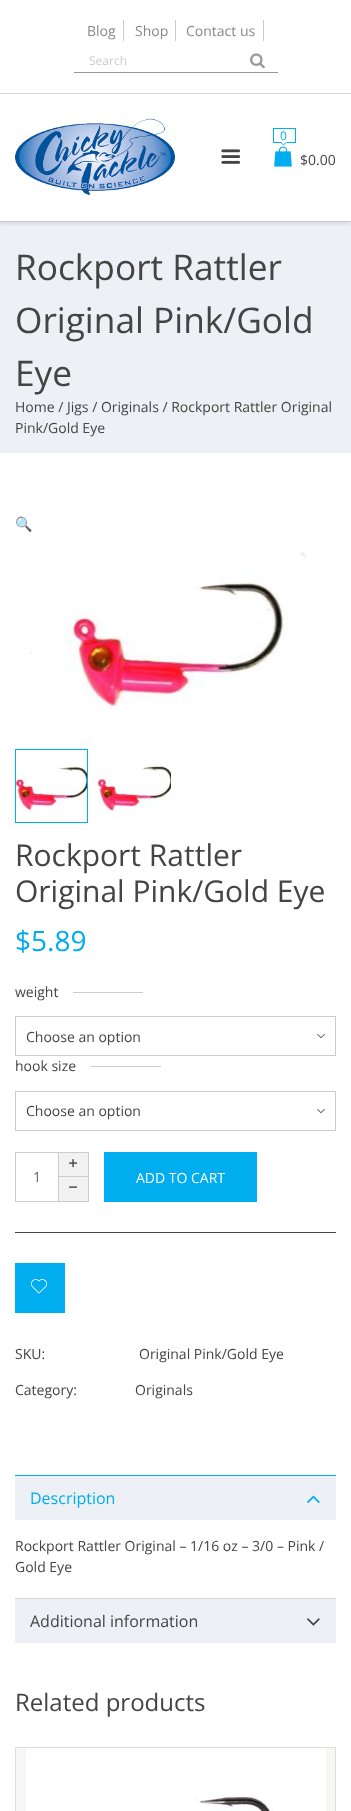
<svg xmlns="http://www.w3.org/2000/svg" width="351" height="1811">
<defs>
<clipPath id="clip1"><rect x="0" y="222" width="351" height="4"/></clipPath>
</defs>
<rect width="100%" height="100%" fill="#fff"/>
<rect y="222" width="351" height="231" fill="#edf0f5"/>
<g clip-path="url(#clip1)">
<rect y="2" width="351" height="222" fill="#0000001a" filter="blur(2.5px)"/>
</g>
<rect y="221" width="351" height="1" fill="#ccc"/>
<rect y="93" width="351" height="1" fill="#d7d7d7"/>
<rect x="123" y="20" width="1" height="21" fill="#ccc"/>
<text x="87" y="36" style="font-family:Open Sans;font-size:14px;fill:#888">Blog</text>
<rect x="175" y="20" width="1" height="21" fill="#ccc"/>
<text x="135" y="36" style="font-family:Open Sans;font-size:14px;fill:#888">Shop</text>
<rect x="263" y="20" width="1" height="21" fill="#ccc"/>
<text x="186" y="36" style="font-family:Open Sans;font-size:14px;fill:#888">Contact us</text>
<rect x="74" y="72" width="204" height="1" fill="#999"/>
<text x="89" y="65" style="font-family:Open Sans;font-size:12px;fill:#ccc">Search</text>
<image x="250" y="53" width="15" height="16" href="media/1.png"/>
<image x="15" y="118" width="160" height="77" href="media/2.png"/>
<image x="221" y="149" width="20" height="15" href="media/3.png"/>
<rect x="273" y="128" width="23" height="1" fill="#00adef"/>
<rect x="295" y="128" width="1" height="15" fill="#00adef"/>
<rect x="273" y="128" width="1" height="15" fill="#00adef"/>
<text x="280" y="140" style="font-family:Open Sans;font-size:12px;fill:#00adef">0</text>
<path d="M280.5 141.5l3 3v1l-3-3z" fill="#00adef"/>
<rect x="274" y="142" width="7" height="1" fill="#00adef"/>
<path d="M283.5 144.5l3-3v1l-3 3z" fill="#00adef"/>
<rect x="287" y="142" width="8" height="1" fill="#00adef"/>
<image x="274" y="146" width="18" height="21" href="media/4.png"/>
<text x="300" y="165" style="font-family:Open Sans;font-size:14px;fill:#444">$0.00</text>
<text x="15" y="280" style="font-family:Open Sans;font-size:35.25px;fill:#444">Rockport Rattler</text>
<text x="15" y="333" style="font-family:Open Sans;font-size:35.25px;fill:#444">Original Pink/Gold</text>
<text x="15" y="386" style="font-family:Open Sans;font-size:35.25px;fill:#444">Eye</text>
<text x="15" y="412" style="font-family:Open Sans;font-size:14px;fill:#444">Home / Jigs / Originals / Rockport Rattler Original</text>
<text x="15" y="433" style="font-family:Open Sans;font-size:14px;fill:#444">Pink/Gold Eye</text>
<text x="15" y="529" style="font-family:Noto Color Emoji;font-size:14px;fill:#444">🔍</text>
<image x="29" y="552" width="278" height="157" href="media/5.png"/>
<rect x="15.5" y="749.5" width="72" height="73" fill="none" stroke="#00adef"/>
<image x="16" y="765" width="71" height="54" href="media/6.png"/>
<image x="98" y="764" width="73" height="56" href="media/7.png"/>
<text x="15" y="866" style="font-family:Open Sans;font-size:30px;fill:#444">Rockport Rattler</text>
<text x="15" y="902" style="font-family:Open Sans;font-size:30px;fill:#444">Original Pink/Gold Eye</text>
<text x="15" y="951" style="font-family:Open Sans;font-size:28px;fill:#00adef">$5.89</text>
<rect x="15" y="1232" width="321" height="1" fill="#444"/>
<text x="15" y="997" style="font-family:Open Sans;font-size:14px;fill:#444">weight</text>
<rect x="73" y="992" width="70" height="1" fill="#ccc"/>
<image x="317" y="1034" width="8" height="4" href="media/8.png"/>
<rect x="15.5" y="1016.5" width="320" height="39" fill="none" stroke="#ccc"/>
<text x="26" y="1042" style="font-family:Open Sans;font-size:14px;fill:#444">Choose an option</text>
<text x="15" y="1071" style="font-family:Open Sans;font-size:14px;fill:#444">hook size</text>
<rect x="91" y="1066" width="70" height="1" fill="#ccc"/>
<image x="317" y="1109" width="8" height="4" href="media/8.png"/>
<rect x="15.5" y="1091.5" width="320" height="39" fill="none" stroke="#ccc"/>
<text x="26" y="1116" style="font-family:Open Sans;font-size:14px;fill:#444">Choose an option</text>
<rect x="15.5" y="1152.5" width="43" height="49" fill="none" stroke="#ccc"/>
<text x="33" y="1182" style="font-family:Open Sans;font-size:14px;fill:#666">1</text>
<rect x="59" y="1153" width="29" height="23" fill="#f2f2f2"/>
<rect x="59" y="1152" width="30" height="1" fill="#ccc"/>
<rect x="88" y="1152" width="1" height="50" fill="#ccc"/>
<rect x="59" y="1176" width="30" height="1" fill="#ccc"/>
<image x="69" y="1159" width="9" height="9" href="media/9.png"/>
<rect x="59" y="1177" width="29" height="24" fill="#f2f2f2"/>
<rect x="59" y="1201" width="30" height="1" fill="#ccc"/>
<image x="69" y="1186" width="9" height="2" href="media/10.png"/>
<rect x="104" y="1152" width="153" height="50" fill="#00adef"/>
<text x="136" y="1183" style="font-family:Open Sans;font-size:14px;fill:#fff">ADD TO CART</text>
<rect x="15" y="1263" width="50" height="50" fill="#00adef"/>
<image x="31" y="1279" width="16" height="15" href="media/11.png"/>
<text x="15" y="1359" style="font-family:Open Sans;font-size:14px;fill:#444">SKU:</text>
<text x="139" y="1359" style="font-family:Open Sans;font-size:14px;fill:#444">Original Pink/Gold Eye</text>
<text x="15" y="1395" style="font-family:Open Sans;font-size:14px;fill:#444">Category:</text>
<text x="135" y="1395" style="font-family:Open Sans;font-size:14px;fill:#444">Originals</text>
<rect x="15" y="1476" width="321" height="44" fill="#edf0f5"/>
<rect x="15" y="1475" width="321" height="1" fill="#00adef"/>
<text x="30" y="1504" style="font-family:Open Sans;font-size:16px;fill:#00adef">Description</text>
<image x="307" y="1495" width="13" height="8" href="media/12.png"/>
<text x="15" y="1551" style="font-family:Open Sans;font-size:14px;fill:#444">Rockport Rattler Original – 1/16 oz – 3/0 – Pink /</text>
<text x="15" y="1572" style="font-family:Open Sans;font-size:14px;fill:#444">Gold Eye</text>
<rect x="15" y="1599" width="321" height="44" fill="#edf0f5"/>
<rect x="15" y="1598" width="321" height="1" fill="#d7d7d7"/>
<text x="30" y="1627" style="font-family:Open Sans;font-size:16px;fill:#444">Additional information</text>
<image x="307" y="1618" width="13" height="8" href="media/13.png"/>
<text x="15" y="1711" style="font-family:Open Sans;font-size:24px;fill:#444">Related products</text>
<rect x="15.5" y="1747.5" width="320" height="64" fill="none" stroke="#dcddde"/>
<rect x="16" y="1748" width="319" height="63" fill="#f7f6f4"/>
<image x="26" y="1748" width="300" height="63" href="media/14.png"/>
</svg>
